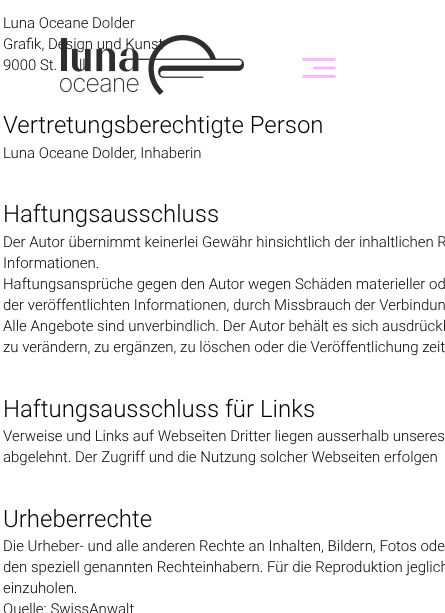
<svg xmlns="http://www.w3.org/2000/svg" width="445" height="613">
<rect width="100%" height="100%" fill="#fff"/>
<text x="3" y="28" style="font-family:Roboto;font-size:15px;font-weight:300;fill:#000">Luna Oceane Dolder</text>
<text x="3" y="49" style="font-family:Roboto;font-size:15px;font-weight:300;fill:#000">Grafik, Design und Kunst</text>
<text x="3" y="70" style="font-family:Roboto;font-size:15px;font-weight:300;fill:#000">9000 St.</text>
<text x="79" y="70" style="font-family:Roboto;font-size:15px;font-weight:300;fill:#000">ll</text>
<text x="3" y="133" style="font-family:Roboto;font-size:24px;font-weight:300;fill:#000">Vertretungsberechtigte Person</text>
<text x="3" y="158" style="font-family:Roboto;font-size:15px;font-weight:300;fill:#000">Luna Oceane Dolder, Inhaberin</text>
<text x="3" y="222" style="font-family:Roboto;font-size:24px;font-weight:300;fill:#000">Haftungsausschluss</text>
<text x="3" y="247" style="font-family:Roboto;font-size:15px;font-weight:300;fill:#000">Der Autor übernimmt keinerlei Gewähr hinsichtlich der inhaltlichen R</text>
<text x="3" y="268" style="font-family:Roboto;font-size:15px;font-weight:300;fill:#000">Informationen.</text>
<text x="3" y="289" style="font-family:Roboto;font-size:15px;font-weight:300;fill:#000">Haftungsansprüche gegen den Autor wegen Schäden materieller od</text>
<text x="3" y="310" style="font-family:Roboto;font-size:15px;font-weight:300;fill:#000">der veröffentlichten Informationen, durch Missbrauch der Verbindun</text>
<text x="3" y="331" style="font-family:Roboto;font-size:15px;font-weight:300;fill:#000">Alle Angebote sind unverbindlich. Der Autor behält es sich ausdrückl</text>
<text x="3" y="352" style="font-family:Roboto;font-size:15px;font-weight:300;fill:#000">zu verändern, zu ergänzen, zu löschen oder die Veröffentlichung zeit</text>
<text x="3" y="417" style="font-family:Roboto;font-size:24px;font-weight:300;fill:#000">Haftungsausschluss für Links</text>
<text x="3" y="441" style="font-family:Roboto;font-size:15px;font-weight:300;fill:#000">Verweise und Links auf Webseiten Dritter liegen ausserhalb unseres</text>
<text x="3" y="462" style="font-family:Roboto;font-size:15px;font-weight:300;fill:#000">abgelehnt. Der Zugriff und die Nutzung solcher Webseiten erfolgen</text>
<text x="3" y="527" style="font-family:Roboto;font-size:24px;font-weight:300;fill:#000">Urheberrechte</text>
<text x="3" y="551" style="font-family:Roboto;font-size:15px;font-weight:300;fill:#000">Die Urheber- und alle anderen Rechte an Inhalten, Bildern, Fotos ode</text>
<text x="3" y="572" style="font-family:Roboto;font-size:15px;font-weight:300;fill:#000">den speziell genannten Rechteinhabern. Für die Reproduktion jeglich</text>
<text x="3" y="593" style="font-family:Roboto;font-size:15px;font-weight:300;fill:#000">einzuholen.</text>
<text x="3" y="614" style="font-family:Roboto;font-size:15px;font-weight:300;fill:#000">Quelle: SwissAnwalt</text>
<image x="60" y="35" width="184" height="60" href="media/1.png"/>
<image x="302" y="58" width="34" height="20" href="media/2.png"/>
</svg>
